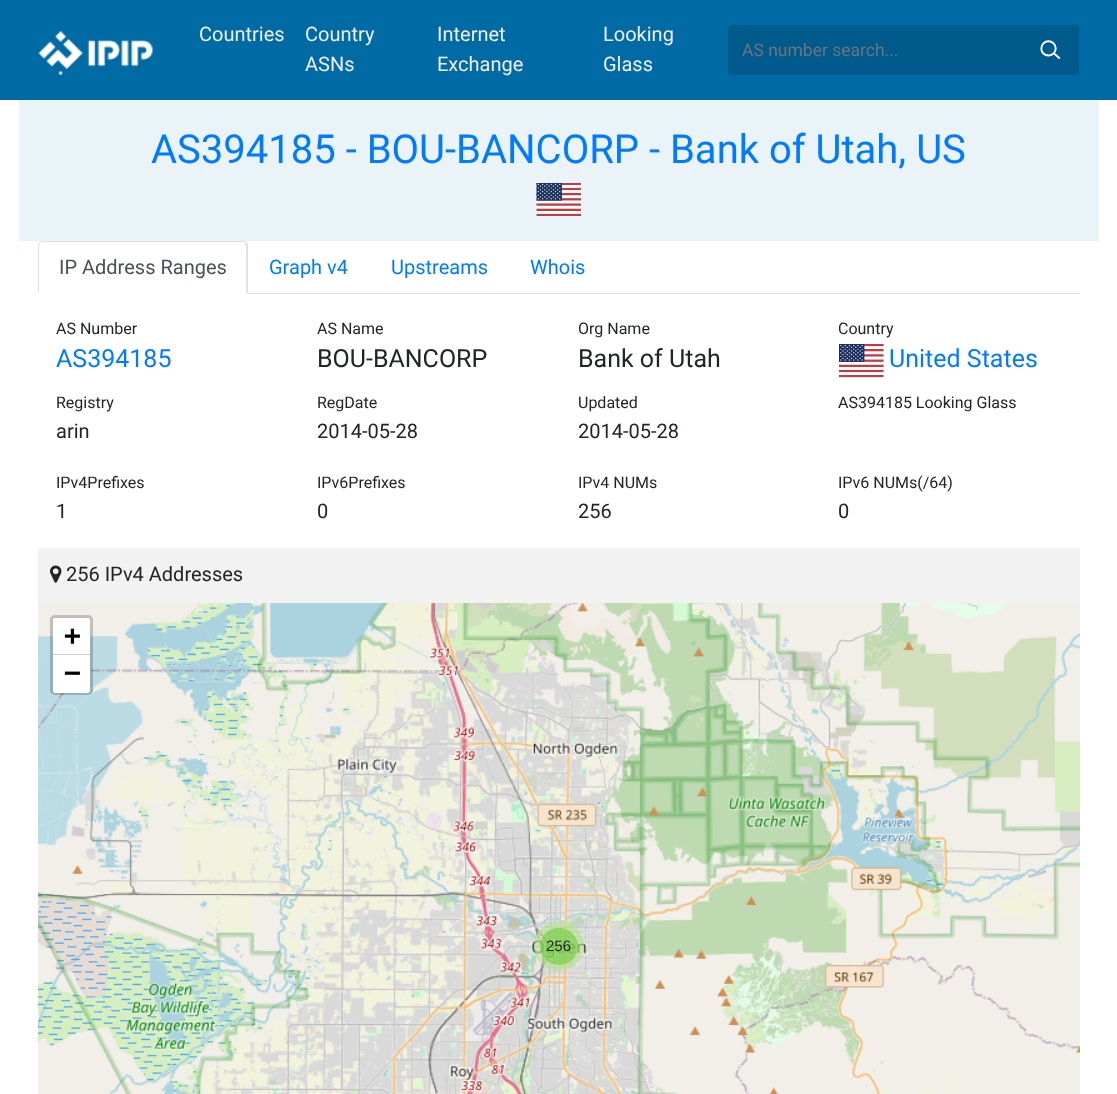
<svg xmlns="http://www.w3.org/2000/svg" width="1117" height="1094">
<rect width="100%" height="100%" fill="#fff"/>
<rect width="1117" height="100" fill="#006aa5"/>
<image x="38" y="31" width="115" height="44" href="media/1.png"/>
<text x="199" y="41" style="font-family:Roboto;font-size:20px;fill:#efefef">Countries</text>
<text x="305" y="41" style="font-family:Roboto;font-size:20px;fill:#efefef">Country</text>
<text x="305" y="71" style="font-family:Roboto;font-size:20px;fill:#efefef">ASNs</text>
<text x="437" y="41" style="font-family:Roboto;font-size:20px;fill:#efefef">Internet</text>
<text x="437" y="71" style="font-family:Roboto;font-size:20px;fill:#efefef">Exchange</text>
<text x="603" y="41" style="font-family:Roboto;font-size:20px;fill:#efefef">Looking</text>
<text x="603" y="71" style="font-family:Roboto;font-size:20px;fill:#efefef">Glass</text>
<rect x="728" y="25" width="351" height="50" rx="4" fill="#005a8c"/>
<text x="742" y="56" style="font-family:Roboto;font-size:17.5px;fill:#6c757d">AS number search...</text>
<image x="1040" y="40" width="21" height="20" href="media/2.png"/>
<rect x="19" y="100" width="1080" height="141" fill="#eaf3f8"/>
<text x="151" y="163" style="font-family:Roboto;font-size:40px;fill:#007bff">AS394185 - BOU-BANCORP - Bank of Utah, US</text>
<image x="536" y="183" width="45" height="33" href="media/3.png"/>
<rect x="248" y="293" width="832" height="1" fill="#dee2e6"/>
<path d="M42 242c-1 0-2 1-2 1h-1l2-2h203l2 1l-1 1c0 0-1-1-3-1z" fill="#dee2e6"/>
<path d="M246 242l2 2v50l-2-2v-46l-1-3z" fill="#dee2e6"/>
<path d="M248 294h-210l1-2h207z" fill="#fff"/>
<path d="M38 293v-47c0-1 0-2 1-3h1l-1 3v46z" fill="#dee2e6"/>
<text x="59" y="274" style="font-family:Roboto;font-size:20px;fill:#495057">IP Address Ranges</text>
<text x="269" y="274" style="font-family:Roboto;font-size:20px;fill:#007bff">Graph v4</text>
<text x="391" y="274" style="font-family:Roboto;font-size:20px;fill:#007bff">Upstreams</text>
<text x="530" y="274" style="font-family:Roboto;font-size:20px;fill:#007bff">Whois</text>
<text x="56" y="334" style="font-family:Roboto;font-size:16px;fill:#212529">AS Number</text>
<text x="56" y="367" style="font-family:Roboto;font-size:25px;fill:#007bff">AS394185</text>
<text x="317" y="334" style="font-family:Roboto;font-size:16px;fill:#212529">AS Name</text>
<text x="317" y="367" style="font-family:Roboto;font-size:25px;fill:#212529">BOU-BANCORP</text>
<text x="578" y="334" style="font-family:Roboto;font-size:16px;fill:#212529">Org Name</text>
<text x="578" y="367" style="font-family:Roboto;font-size:25px;fill:#212529">Bank of Utah</text>
<text x="838" y="334" style="font-family:Roboto;font-size:16px;fill:#212529">Country</text>
<image x="839" y="344" width="45" height="34" href="media/4.png"/>
<text x="889" y="367" style="font-family:Roboto;font-size:25px;fill:#007bff">United States</text>
<text x="56" y="408" style="font-family:Roboto;font-size:16px;fill:#212529">Registry</text>
<text x="56" y="438" style="font-family:Roboto;font-size:20px;fill:#212529">arin</text>
<text x="317" y="408" style="font-family:Roboto;font-size:16px;fill:#212529">RegDate</text>
<text x="317" y="438" style="font-family:Roboto;font-size:20px;fill:#212529">2014-05-28</text>
<text x="578" y="408" style="font-family:Roboto;font-size:16px;fill:#212529">Updated</text>
<text x="578" y="438" style="font-family:Roboto;font-size:20px;fill:#212529">2014-05-28</text>
<text x="838" y="408" style="font-family:Roboto;font-size:16px;fill:#212529">AS394185 Looking Glass</text>
<text x="56" y="488" style="font-family:Roboto;font-size:16px;fill:#212529">IPv4Prefixes</text>
<text x="56" y="518" style="font-family:Roboto;font-size:20px;fill:#212529">1</text>
<text x="317" y="488" style="font-family:Roboto;font-size:16px;fill:#212529">IPv6Prefixes</text>
<text x="317" y="518" style="font-family:Roboto;font-size:20px;fill:#212529">0</text>
<text x="578" y="488" style="font-family:Roboto;font-size:16px;fill:#212529">IPv4 NUMs</text>
<text x="578" y="518" style="font-family:Roboto;font-size:20px;fill:#212529">256</text>
<text x="838" y="488" style="font-family:Roboto;font-size:16px;fill:#212529">IPv6 NUMs(/64)</text>
<text x="838" y="518" style="font-family:Roboto;font-size:20px;fill:#212529">0</text>
<rect x="38" y="548" width="1042" height="55" fill="#f2f2f2"/>
<image x="50" y="565" width="12" height="18" href="media/5.png"/>
<text x="66" y="581" style="font-family:Roboto;font-size:20px;fill:#212529">256 IPv4 Addresses</text>
<image x="38" y="603" width="203" height="291" href="media/6.png"/>
<rect x="51.5" y="616.5" width="40" height="77" rx="3.5" fill="none" stroke="#00000033" stroke-width="3"/>
<path d="M55.5 618h32c1.5 0 2.5 1 2.5 2.5v34.5h-37v-34.5c0-1.5 1-2.5 2.5-2.5z" fill="#fff"/>
<rect x="53" y="654" width="37" height="1" fill="#ccc"/>
<text x="64" y="645" style="font-family:DejaVu Sans Mono;font-size:28px;font-weight:bold;fill:#000">+</text>
<path d="M53 655h37v35.5c0 1.5-1 2.5-2.5 2.5h-32c-1.5 0-2.5-1-2.5-2.5z" fill="#fff"/>
<text x="64" y="682" style="font-family:DejaVu Sans Mono;font-size:28px;font-weight:bold;fill:#000">−</text>
<image x="241" y="603" width="320" height="291" href="media/7.png"/>
<image x="561" y="603" width="320" height="291" href="media/8.png"/>
<image x="881" y="603" width="199" height="291" href="media/9.png"/>
<image x="38" y="894" width="203" height="200" href="media/10.png"/>
<image x="241" y="894" width="320" height="200" href="media/11.png"/>
<image x="561" y="894" width="320" height="200" href="media/12.png"/>
<image x="881" y="894" width="199" height="200" href="media/13.png"/>
<circle cx="559" cy="946" r="25" fill="#b5e28c99"/>
<rect x="540" y="928" width="38" height="37" rx="18.5" fill="#6ecc3999"/>
<text x="546" y="951" style="font-family:Liberation Sans;font-size:15px;fill:#212529">256</text>
</svg>
